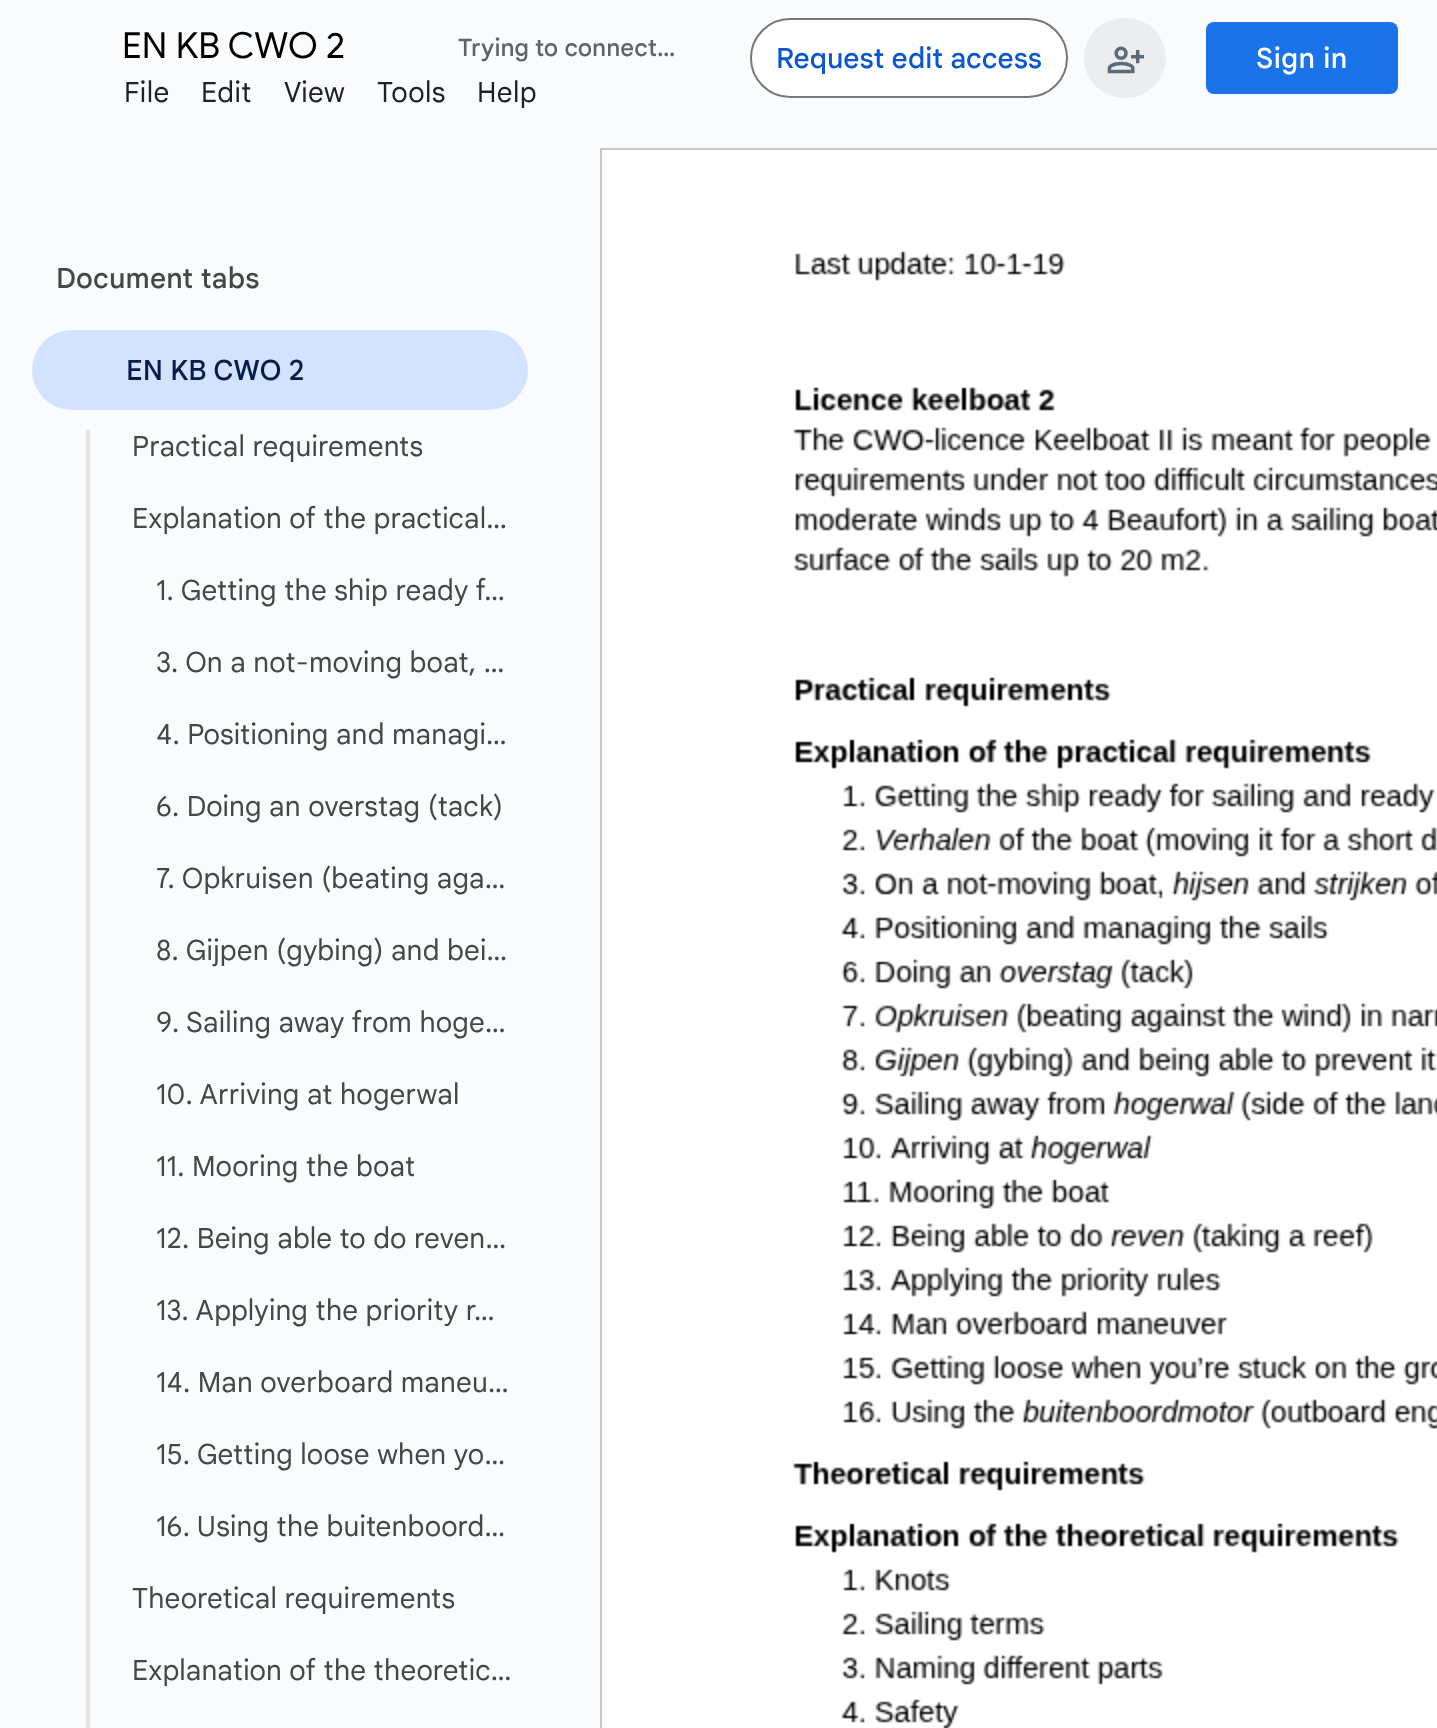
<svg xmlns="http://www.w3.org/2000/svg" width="1437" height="1728">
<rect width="100%" height="100%" fill="#f9fbfd"/>
<text x="122" y="58" style="font-family:'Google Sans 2';font-size:36px;fill:#000">EN KB CWO 2</text>
<text x="458" y="56" style="font-family:Google Sans;font-size:24px;font-weight:500;fill:#5f6368">Trying to connect…</text>
<rect x="751" y="19" width="316" height="78" rx="39" fill="#fff" stroke="#747775" stroke-width="2"/>
<text x="776" y="68" style="font-family:Google Sans;font-size:28px;font-weight:500;fill:#0b57d0">Request edit access</text>
<rect x="1084" y="18" width="82" height="80" rx="40" fill="#ecedee"/>
<image x="1107" y="46" width="37" height="28" href="media/1.png"/>
<rect x="1206" y="22" width="192" height="72" rx="8" fill="#1a73e8"/>
<text x="1256" y="68" style="font-family:Google Sans;font-size:28px;font-weight:500;letter-spacing:0.5px;fill:#fff">Sign in</text>
<text x="124" y="102" style="font-family:Google Sans;font-size:28px;letter-spacing:0.5px;fill:#202124">File</text>
<text x="201" y="102" style="font-family:Google Sans;font-size:28px;letter-spacing:0.5px;fill:#202124">Edit</text>
<text x="284" y="102" style="font-family:Google Sans;font-size:28px;letter-spacing:0.5px;fill:#202124">View</text>
<text x="377" y="102" style="font-family:Google Sans;font-size:28px;letter-spacing:0.5px;fill:#202124">Tools</text>
<text x="477" y="102" style="font-family:Google Sans;font-size:28px;letter-spacing:0.5px;fill:#202124">Help</text>
<text x="56" y="288" style="font-family:Google Sans;font-size:28px;font-weight:500;letter-spacing:0.2px;fill:#444746">Document tabs</text>
<rect x="32" y="330" width="496" height="80" rx="40" fill="#d3e3fd"/>
<text x="126" y="380" style="font-family:Google Sans;font-size:28px;font-weight:500;fill:#041e49">EN KB CWO 2</text>
<rect x="86" y="430" width="4" height="1298" fill="#e3e3e3"/>
<text x="132" y="456" style="font-family:Google Sans;font-size:28px;letter-spacing:0.2px;fill:#444746">Practical requirements</text>
<text x="132" y="528" style="font-family:Google Sans;font-size:28px;letter-spacing:0.2px;fill:#444746">Explanation of the practical…</text>
<text x="156" y="600" style="font-family:Google Sans;font-size:28px;letter-spacing:0.2px;fill:#444746">1. Getting the ship ready f…</text>
<text x="156" y="672" style="font-family:Google Sans;font-size:28px;letter-spacing:0.2px;fill:#444746">3. On a not-moving boat, …</text>
<text x="156" y="744" style="font-family:Google Sans;font-size:28px;letter-spacing:0.2px;fill:#444746">4. Positioning and managi…</text>
<text x="156" y="816" style="font-family:Google Sans;font-size:28px;letter-spacing:0.2px;fill:#444746">6. Doing an overstag (tack)</text>
<text x="156" y="888" style="font-family:Google Sans;font-size:28px;letter-spacing:0.2px;fill:#444746">7. Opkruisen (beating aga…</text>
<text x="156" y="960" style="font-family:Google Sans;font-size:28px;letter-spacing:0.2px;fill:#444746">8. Gijpen (gybing) and bei…</text>
<text x="156" y="1032" style="font-family:Google Sans;font-size:28px;letter-spacing:0.2px;fill:#444746">9. Sailing away from hoge…</text>
<text x="156" y="1104" style="font-family:Google Sans;font-size:28px;letter-spacing:0.2px;fill:#444746">10. Arriving at hogerwal</text>
<text x="156" y="1176" style="font-family:Google Sans;font-size:28px;letter-spacing:0.2px;fill:#444746">11. Mooring the boat</text>
<text x="156" y="1248" style="font-family:Google Sans;font-size:28px;letter-spacing:0.2px;fill:#444746">12. Being able to do reven…</text>
<text x="156" y="1320" style="font-family:Google Sans;font-size:28px;letter-spacing:0.2px;fill:#444746">13. Applying the priority r…</text>
<text x="156" y="1392" style="font-family:Google Sans;font-size:28px;letter-spacing:0.2px;fill:#444746">14. Man overboard maneu…</text>
<text x="156" y="1464" style="font-family:Google Sans;font-size:28px;letter-spacing:0.2px;fill:#444746">15. Getting loose when yo…</text>
<text x="156" y="1536" style="font-family:Google Sans;font-size:28px;letter-spacing:0.2px;fill:#444746">16. Using the buitenboord…</text>
<text x="132" y="1608" style="font-family:Google Sans;font-size:28px;letter-spacing:0.2px;fill:#444746">Theoretical requirements</text>
<text x="132" y="1680" style="font-family:Google Sans;font-size:28px;letter-spacing:0.2px;fill:#444746">Explanation of the theoretic…</text>
<rect x="601" y="149" width="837" height="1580" fill="none" stroke="#c7c7c7" stroke-width="2"/>
<image x="602" y="150" width="835" height="1578" href="media/2.png"/>
</svg>
